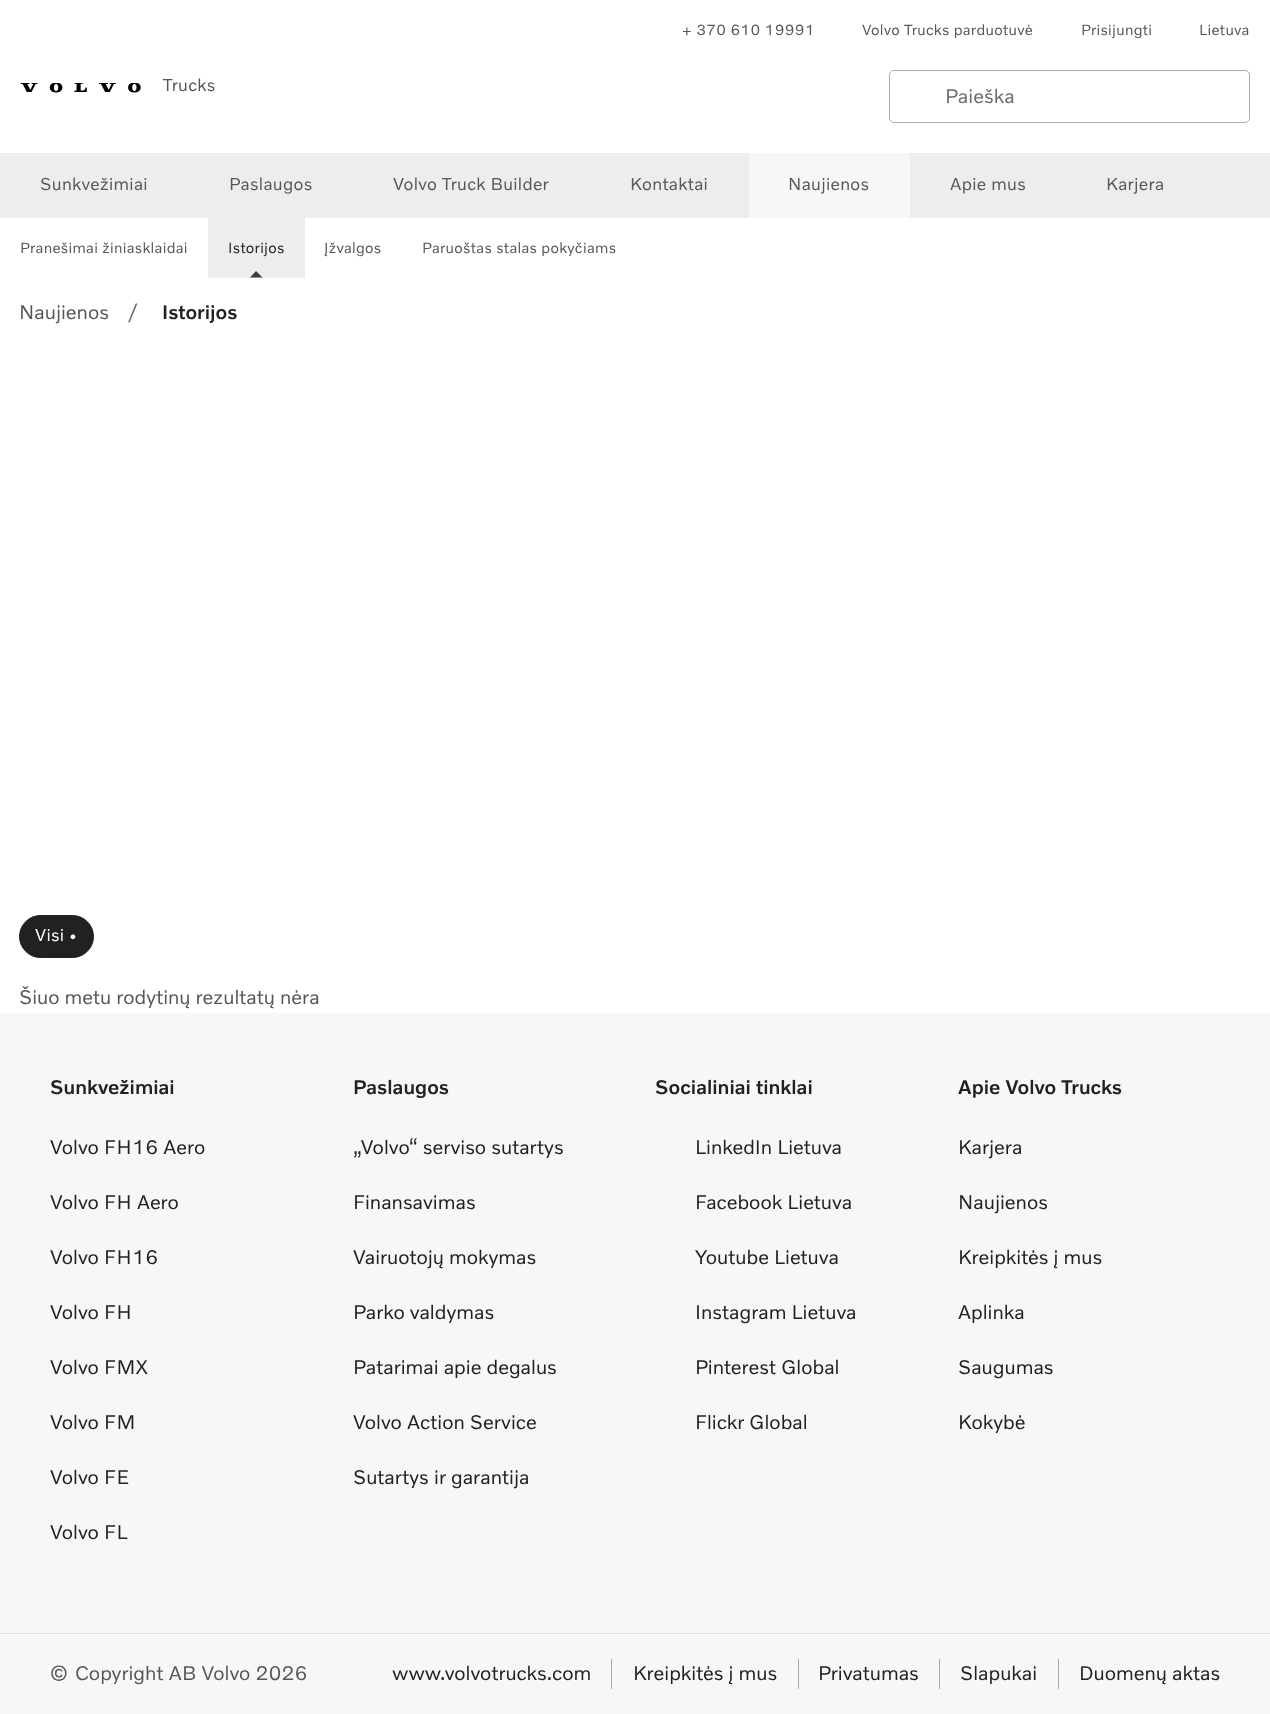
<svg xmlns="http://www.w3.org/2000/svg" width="1270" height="1714">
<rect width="100%" height="100%" fill="#fff"/>
<text x="682" y="35" style="font-family:'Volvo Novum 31';font-size:15px;letter-spacing:0.3px;fill:#575757">+ 370 610 19991</text>
<text x="862" y="35" style="font-family:'Volvo Novum 31';font-size:15px;letter-spacing:0.3px;fill:#575757">Volvo Trucks parduotuvė</text>
<text x="1081" y="35" style="font-family:'Volvo Novum 31';font-size:15px;letter-spacing:0.3px;fill:#575757">Prisijungti</text>
<text x="1199" y="35" style="font-family:'Volvo Novum 31';font-size:15px;letter-spacing:0.3px;fill:#575757">Lietuva</text>
<image x="20" y="83" width="121" height="10" href="media/1.png"/>
<text x="163" y="91" style="font-family:'Volvo Novum 31';font-size:17.5px;letter-spacing:0.3px;fill:#575757">Trucks</text>
<rect x="889.5" y="70.5" width="360" height="52" rx="4.5" fill="none" stroke="#a9a9a9"/>
<rect x="890" y="71" width="359" height="50" rx="5" fill="#fff"/>
<text x="945" y="103" style="font-family:'Volvo Novum 31';font-size:20px;fill:#6b6b6b">Paieška</text>
<rect y="153" width="1270" height="65" fill="#ededed"/>
<text x="40" y="190" style="font-family:'Volvo Novum 31';font-size:17.5px;letter-spacing:0.3px;fill:#575757">Sunkvežimiai</text>
<text x="229" y="190" style="font-family:'Volvo Novum 31';font-size:17.5px;letter-spacing:0.3px;fill:#575757">Paslaugos</text>
<text x="393" y="190" style="font-family:'Volvo Novum 31';font-size:17.5px;letter-spacing:0.3px;fill:#575757">Volvo Truck Builder</text>
<text x="630" y="190" style="font-family:'Volvo Novum 31';font-size:17.5px;letter-spacing:0.3px;fill:#575757">Kontaktai</text>
<rect x="749" y="153" width="161" height="65" fill="#f7f7f7"/>
<text x="788" y="190" style="font-family:'Volvo Novum 31';font-size:17.5px;letter-spacing:0.3px;fill:#575757">Naujienos</text>
<text x="950" y="190" style="font-family:'Volvo Novum 31';font-size:17.5px;letter-spacing:0.3px;fill:#575757">Apie mus</text>
<text x="1106" y="190" style="font-family:'Volvo Novum 31';font-size:17.5px;letter-spacing:0.3px;fill:#575757">Karjera</text>
<text x="20" y="253" style="font-family:'Volvo Novum 31';font-size:15px;letter-spacing:0.3px;fill:#575757">Pranešimai žiniasklaidai</text>
<rect x="208" y="218" width="97" height="60" fill="#ededed"/>
<text x="228" y="253" style="font-family:'Volvo Novum 31';font-size:15px;letter-spacing:0.3px;fill:#212121">Istorijos</text>
<path d="M262.5 277.5h-12.5l6-6.5z" fill="#3d3d3d"/>
<text x="324" y="253" style="font-family:'Volvo Novum 31';font-size:15px;letter-spacing:0.3px;fill:#575757">Įžvalgos</text>
<text x="422" y="253" style="font-family:'Volvo Novum 31';font-size:15px;letter-spacing:0.3px;fill:#575757">Paruoštas stalas pokyčiams</text>
<text x="19" y="319" style="font-family:'Volvo Novum 31';font-size:20px;fill:#575757">Naujienos</text>
<text x="129" y="319" style="font-family:'Volvo Novum 31';font-size:20px;fill:#6b6b6b">/</text>
<text x="162" y="319" style="font-family:'Volvo Novum 31';font-size:20px;font-weight:bold;fill:#212121">Istorijos</text>
<rect x="19.5" y="915.5" width="74" height="42" rx="21" fill="#212121" stroke="#212121"/>
<text x="35" y="941" style="font-family:'Volvo Novum 31';font-size:17.5px;letter-spacing:0.3px;fill:#fff">Visi •</text>
<text x="19" y="1004" style="font-family:'Volvo Novum 31';font-size:20px;fill:#575757">Šiuo metu rodytinų rezultatų nėra</text>
<rect y="1013" width="1270" height="701" fill="#f7f7f7"/>
<text x="50" y="1094" style="font-family:'Volvo Novum 31';font-size:20px;font-weight:bold;fill:#212121">Sunkvežimiai</text>
<text x="50" y="1154" style="font-family:'Volvo Novum 31';font-size:20px;fill:#212121">Volvo FH16 Aero</text>
<text x="50" y="1209" style="font-family:'Volvo Novum 31';font-size:20px;fill:#212121">Volvo FH Aero</text>
<text x="50" y="1264" style="font-family:'Volvo Novum 31';font-size:20px;fill:#212121">Volvo FH16</text>
<text x="50" y="1319" style="font-family:'Volvo Novum 31';font-size:20px;fill:#212121">Volvo FH</text>
<text x="50" y="1374" style="font-family:'Volvo Novum 31';font-size:20px;fill:#212121">Volvo FMX</text>
<text x="50" y="1429" style="font-family:'Volvo Novum 31';font-size:20px;fill:#212121">Volvo FM</text>
<text x="50" y="1484" style="font-family:'Volvo Novum 31';font-size:20px;fill:#212121">Volvo FE</text>
<text x="50" y="1539" style="font-family:'Volvo Novum 31';font-size:20px;fill:#212121">Volvo FL</text>
<text x="353" y="1094" style="font-family:'Volvo Novum 31';font-size:20px;font-weight:bold;fill:#212121">Paslaugos</text>
<text x="353" y="1154" style="font-family:'Volvo Novum 31';font-size:20px;fill:#212121">„Volvo“ serviso sutartys</text>
<text x="353" y="1209" style="font-family:'Volvo Novum 31';font-size:20px;fill:#212121">Finansavimas</text>
<text x="353" y="1264" style="font-family:'Volvo Novum 31';font-size:20px;fill:#212121">Vairuotojų mokymas</text>
<text x="353" y="1319" style="font-family:'Volvo Novum 31';font-size:20px;fill:#212121">Parko valdymas</text>
<text x="353" y="1374" style="font-family:'Volvo Novum 31';font-size:20px;fill:#212121">Patarimai apie degalus</text>
<text x="353" y="1429" style="font-family:'Volvo Novum 31';font-size:20px;fill:#212121">Volvo Action Service</text>
<text x="353" y="1484" style="font-family:'Volvo Novum 31';font-size:20px;fill:#212121">Sutartys ir garantija</text>
<text x="655" y="1094" style="font-family:'Volvo Novum 31';font-size:20px;font-weight:bold;fill:#212121">Socialiniai tinklai</text>
<text x="695" y="1154" style="font-family:'Volvo Novum 31';font-size:20px;fill:#212121">LinkedIn Lietuva</text>
<text x="695" y="1209" style="font-family:'Volvo Novum 31';font-size:20px;fill:#212121">Facebook Lietuva</text>
<text x="695" y="1264" style="font-family:'Volvo Novum 31';font-size:20px;fill:#212121">Youtube Lietuva</text>
<text x="695" y="1319" style="font-family:'Volvo Novum 31';font-size:20px;fill:#212121">Instagram Lietuva</text>
<text x="695" y="1374" style="font-family:'Volvo Novum 31';font-size:20px;fill:#212121">Pinterest Global</text>
<text x="695" y="1429" style="font-family:'Volvo Novum 31';font-size:20px;fill:#212121">Flickr Global</text>
<text x="958" y="1094" style="font-family:'Volvo Novum 31';font-size:20px;font-weight:bold;fill:#212121">Apie Volvo Trucks</text>
<text x="958" y="1154" style="font-family:'Volvo Novum 31';font-size:20px;fill:#212121">Karjera</text>
<text x="958" y="1209" style="font-family:'Volvo Novum 31';font-size:20px;fill:#212121">Naujienos</text>
<text x="958" y="1264" style="font-family:'Volvo Novum 31';font-size:20px;fill:#212121">Kreipkitės į mus</text>
<text x="958" y="1319" style="font-family:'Volvo Novum 31';font-size:20px;fill:#212121">Aplinka</text>
<text x="958" y="1374" style="font-family:'Volvo Novum 31';font-size:20px;fill:#212121">Saugumas</text>
<text x="958" y="1429" style="font-family:'Volvo Novum 31';font-size:20px;fill:#212121">Kokybė</text>
<rect y="1633" width="1270" height="1" fill="#e1e1e1"/>
<text x="50" y="1680" style="font-family:'Volvo Novum 31';font-size:20px;fill:#575757">©</text>
<text x="75" y="1680" style="font-family:'Volvo Novum 31';font-size:20px;fill:#575757">Copyright AB Volvo 2026</text>
<text x="392" y="1680" style="font-family:'Volvo Novum 31';font-size:20px;fill:#212121">www.volvotrucks.com</text>
<rect x="611" y="1659" width="1" height="30" fill="#a9a9a9"/>
<text x="633" y="1680" style="font-family:'Volvo Novum 31';font-size:20px;fill:#212121">Kreipkitės į mus</text>
<rect x="798" y="1659" width="1" height="30" fill="#a9a9a9"/>
<text x="818" y="1680" style="font-family:'Volvo Novum 31';font-size:20px;fill:#212121">Privatumas</text>
<rect x="939" y="1659" width="1" height="30" fill="#a9a9a9"/>
<text x="960" y="1680" style="font-family:'Volvo Novum 31';font-size:20px;fill:#212121">Slapukai</text>
<rect x="1058" y="1659" width="1" height="30" fill="#a9a9a9"/>
<text x="1079" y="1680" style="font-family:'Volvo Novum 31';font-size:20px;fill:#212121">Duomenų aktas</text>
</svg>
